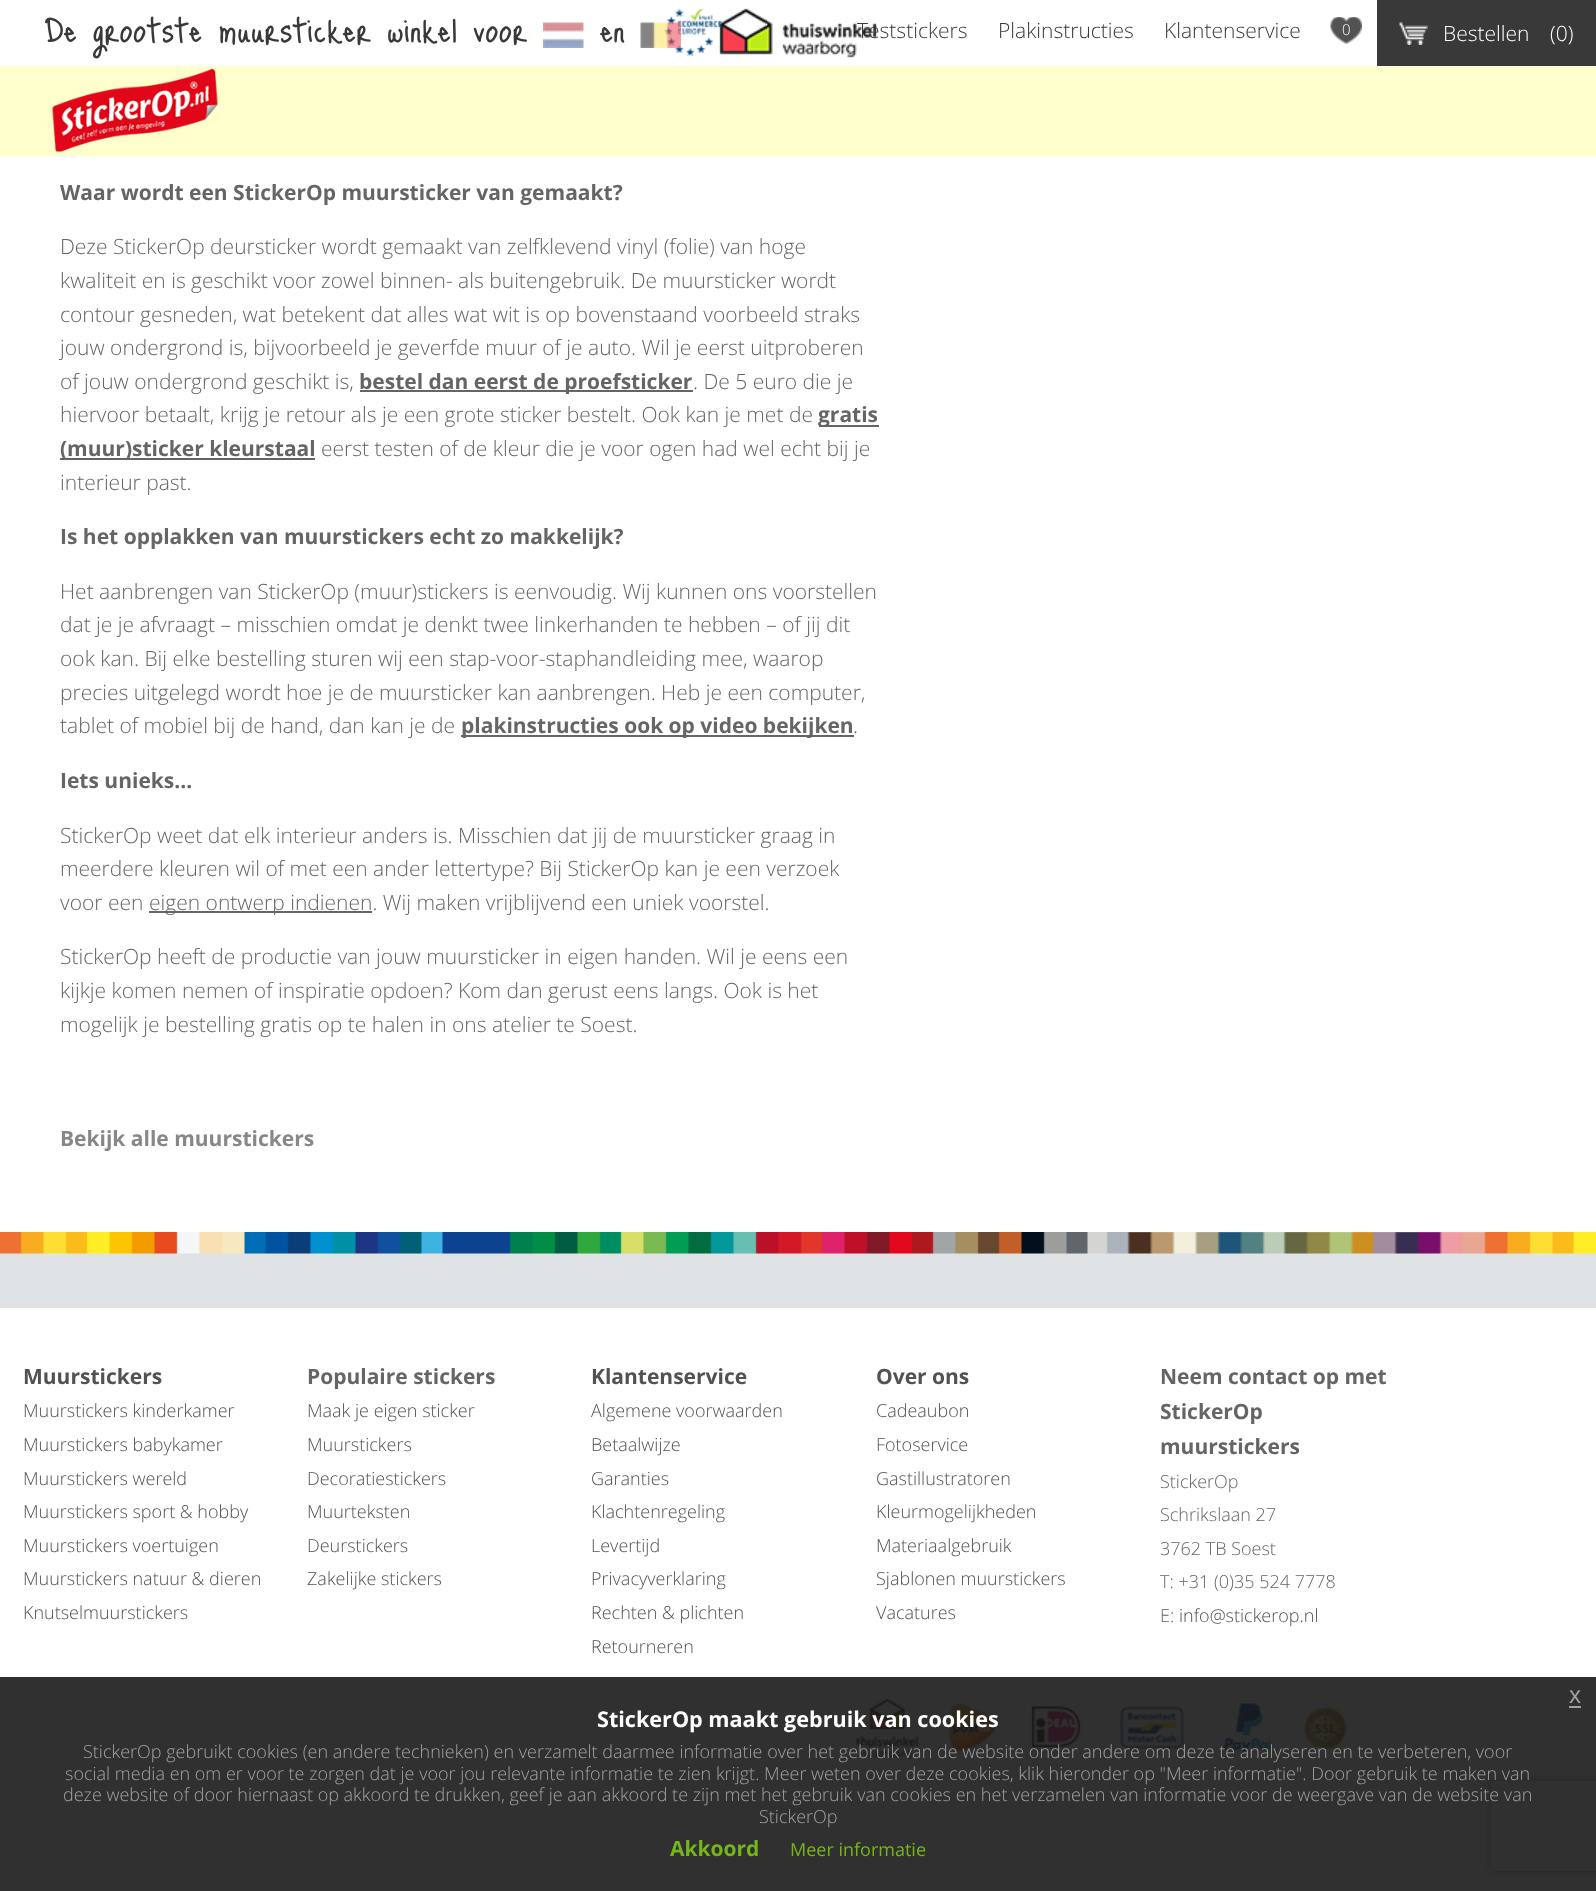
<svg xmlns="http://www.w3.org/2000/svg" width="1596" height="1891">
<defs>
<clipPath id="clip1"><path d="M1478 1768h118v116h-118zm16 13h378c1.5 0 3 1.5 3 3v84c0 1.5-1.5 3-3 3h-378c-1.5 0-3-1.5-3-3v-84c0-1.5 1.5-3 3-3z" clip-rule="evenodd"/></clipPath>
</defs>
<rect width="100%" height="100%" fill="#fff"/>
<image x="719" y="8" width="158" height="50" href="media/1.png"/>
<text x="45" y="42" style="font-family:Just Me Again Down Here;font-size:42px;fill:#393939">De grootste muursticker winkel voor</text>
<image x="543" y="22" width="41" height="26" href="media/2.png"/>
<text x="600" y="42" style="font-family:Just Me Again Down Here;font-size:42px;fill:#393939">en</text>
<image x="664" y="8" width="58" height="48" href="media/4.png"/>
<image x="640" y="22" width="41" height="26" href="media/3.png"/>
<text x="857" y="38" style="font-family:Open Sans;font-size:21px;font-weight:300;fill:#393939">Teststickers</text>
<text x="998" y="38" style="font-family:Open Sans;font-size:21px;font-weight:300;fill:#393939">Plakinstructies</text>
<text x="1164" y="38" style="font-family:Open Sans;font-size:21px;font-weight:300;fill:#393939">Klantenservice</text>
<image x="1330" y="17" width="32" height="27" href="media/5.png"/>
<text x="1342" y="35" style="font-family:Open Sans;font-size:15px;font-weight:300;fill:#fff">0</text>
<rect x="1377" width="219" height="66" fill="#393939"/>
<image x="1399" y="22" width="29" height="23" href="media/6.png"/>
<text x="1443" y="41" style="font-family:Open Sans;font-size:21px;font-weight:300;fill:#fff">Bestellen</text>
<text x="1550" y="41" style="font-family:Open Sans;font-size:21px;font-weight:300;fill:#fff">(0)</text>
<rect y="66" width="1596" height="90" fill="#ffffcd"/>
<image x="52" y="69" width="166" height="83" href="media/7.png"/>
<text x="60" y="200" style="font-family:Open Sans;font-size:21px;font-weight:bold;fill:#656565">Waar wordt een StickerOp muursticker van gemaakt?</text>
<text x="60" y="254" style="font-family:Open Sans;font-size:21px;font-weight:300;fill:#656565">Deze StickerOp deursticker wordt gemaakt van zelfklevend vinyl (folie) van hoge</text>
<text x="60" y="288" style="font-family:Open Sans;font-size:21px;font-weight:300;fill:#656565">kwaliteit en is geschikt voor zowel binnen- als buitengebruik. De muursticker wordt</text>
<text x="60" y="322" style="font-family:Open Sans;font-size:21px;font-weight:300;fill:#656565">contour gesneden, wat betekent dat alles wat wit is op bovenstaand voorbeeld straks</text>
<text x="60" y="355" style="font-family:Open Sans;font-size:21px;font-weight:300;fill:#656565">jouw ondergrond is, bijvoorbeeld je geverfde muur of je auto. Wil je eerst uitproberen</text>
<text x="60" y="389" style="font-family:Open Sans;font-size:21px;font-weight:300;fill:#656565">of jouw ondergrond geschikt is,</text>
<rect x="360" y="390" width="333" height="2" fill="#656565"/>
<text x="359" y="389" style="font-family:Open Sans;font-size:21px;font-weight:bold;fill:#656565">bestel dan eerst de proefsticker</text>
<text x="693" y="389" style="font-family:Open Sans;font-size:21px;font-weight:300;fill:#656565">. De 5 euro die je</text>
<text x="60" y="422" style="font-family:Open Sans;font-size:21px;font-weight:300;fill:#656565">hiervoor betaalt, krijg je retour als je een grote sticker bestelt. Ook kan je met de</text>
<rect x="819" y="425" width="60" height="2" fill="#656565"/>
<text x="818" y="422" style="font-family:Open Sans;font-size:21px;font-weight:bold;fill:#656565">gratis</text>
<rect x="60" y="458" width="255" height="2" fill="#656565"/>
<text x="60" y="456" style="font-family:Open Sans;font-size:21px;font-weight:bold;fill:#656565">(muur)sticker kleurstaal</text>
<text x="321" y="456" style="font-family:Open Sans;font-size:21px;font-weight:300;fill:#656565">eerst testen of de kleur die je voor ogen had wel echt bij je</text>
<text x="60" y="490" style="font-family:Open Sans;font-size:21px;font-weight:300;fill:#656565">interieur past.</text>
<text x="60" y="544" style="font-family:Open Sans;font-size:21px;font-weight:bold;fill:#656565">Is het opplakken van muurstickers echt zo makkelijk?</text>
<text x="60" y="599" style="font-family:Open Sans;font-size:21px;font-weight:300;fill:#656565">Het aanbrengen van StickerOp (muur)stickers is eenvoudig. Wij kunnen ons voorstellen</text>
<text x="60" y="632" style="font-family:Open Sans;font-size:21px;font-weight:300;fill:#656565">dat je je afvraagt – misschien omdat je denkt twee linkerhanden te hebben – of jij dit</text>
<text x="60" y="666" style="font-family:Open Sans;font-size:21px;font-weight:300;fill:#656565">ook kan. Bij elke bestelling sturen wij een stap-voor-staphandleiding mee, waarop</text>
<text x="60" y="700" style="font-family:Open Sans;font-size:21px;font-weight:300;fill:#656565">precies uitgelegd wordt hoe je de muursticker kan aanbrengen. Heb je een computer,</text>
<text x="60" y="733" style="font-family:Open Sans;font-size:21px;font-weight:300;fill:#656565">tablet of mobiel bij de hand, dan kan je de</text>
<rect x="461" y="735" width="393" height="2" fill="#656565"/>
<text x="461" y="733" style="font-family:Open Sans;font-size:21px;font-weight:bold;fill:#656565">plakinstructies ook op video bekijken</text>
<text x="853" y="733" style="font-family:Open Sans;font-size:21px;font-weight:300;fill:#656565">.</text>
<text x="60" y="788" style="font-family:Open Sans;font-size:21px;font-weight:bold;fill:#656565">Iets unieks…</text>
<text x="60" y="843" style="font-family:Open Sans;font-size:21px;font-weight:300;fill:#656565">StickerOp weet dat elk interieur anders is. Misschien dat jij de muursticker graag in</text>
<text x="60" y="876" style="font-family:Open Sans;font-size:21px;font-weight:300;fill:#656565">meerdere kleuren wil of met een ander lettertype? Bij StickerOp kan je een verzoek</text>
<text x="60" y="910" style="font-family:Open Sans;font-size:21px;font-weight:300;fill:#656565">voor een</text>
<rect x="149" y="911" width="223" height="2" fill="#656565"/>
<text x="149" y="910" style="font-family:Open Sans;font-size:21px;font-weight:300;fill:#656565">eigen ontwerp indienen. Wij maken vrijblijvend een uniek voorstel.</text>
<text x="60" y="964" style="font-family:Open Sans;font-size:21px;font-weight:300;fill:#656565">StickerOp heeft de productie van jouw muursticker in eigen handen. Wil je eens een</text>
<text x="60" y="998" style="font-family:Open Sans;font-size:21px;font-weight:300;fill:#656565">kijkje komen nemen of inspiratie opdoen? Kom dan gerust eens langs. Ook is het</text>
<text x="60" y="1032" style="font-family:Open Sans;font-size:21px;font-weight:300;fill:#656565">mogelijk je bestelling gratis op te halen in ons atelier te Soest.</text>
<text x="60" y="1146" style="font-family:Open Sans;font-size:21px;font-weight:bold;fill:#878787">Bekijk alle muurstickers</text>
<rect y="1232" width="1596" height="76" fill="#dfe3e6"/>
<image x="0" y="1232" width="1596" height="22" href="media/8.png"/>
<image x="856" y="1698" width="492" height="61" href="media/9.png"/>
<text x="23" y="1384" style="font-family:Open Sans;font-size:21px;font-weight:bold;fill:#525252">Muurstickers</text>
<text x="23" y="1417" style="font-family:Open Sans;font-size:18px;font-weight:300;fill:#525252">Muurstickers kinderkamer</text>
<text x="23" y="1451" style="font-family:Open Sans;font-size:18px;font-weight:300;fill:#525252">Muurstickers babykamer</text>
<text x="23" y="1485" style="font-family:Open Sans;font-size:18px;font-weight:300;fill:#525252">Muurstickers wereld</text>
<text x="23" y="1518" style="font-family:Open Sans;font-size:18px;font-weight:300;fill:#525252">Muurstickers sport &amp; hobby</text>
<text x="23" y="1552" style="font-family:Open Sans;font-size:18px;font-weight:300;fill:#525252">Muurstickers voertuigen</text>
<text x="23" y="1585" style="font-family:Open Sans;font-size:18px;font-weight:300;fill:#525252">Muurstickers natuur &amp; dieren</text>
<text x="23" y="1619" style="font-family:Open Sans;font-size:18px;font-weight:300;fill:#525252">Knutselmuurstickers</text>
<text x="307" y="1384" style="font-family:Open Sans;font-size:21px;font-weight:bold;fill:#656565">Populaire stickers</text>
<text x="307" y="1417" style="font-family:Open Sans;font-size:18px;font-weight:300;fill:#525252">Maak je eigen sticker</text>
<text x="307" y="1451" style="font-family:Open Sans;font-size:18px;font-weight:300;fill:#525252">Muurstickers</text>
<text x="307" y="1485" style="font-family:Open Sans;font-size:18px;font-weight:300;fill:#525252">Decoratiestickers</text>
<text x="307" y="1518" style="font-family:Open Sans;font-size:18px;font-weight:300;fill:#525252">Muurteksten</text>
<text x="307" y="1552" style="font-family:Open Sans;font-size:18px;font-weight:300;fill:#525252">Deurstickers</text>
<text x="307" y="1585" style="font-family:Open Sans;font-size:18px;font-weight:300;fill:#525252">Zakelijke stickers</text>
<text x="591" y="1384" style="font-family:Open Sans;font-size:21px;font-weight:bold;fill:#525252">Klantenservice</text>
<text x="591" y="1417" style="font-family:Open Sans;font-size:18px;font-weight:300;fill:#525252">Algemene voorwaarden</text>
<text x="591" y="1451" style="font-family:Open Sans;font-size:18px;font-weight:300;fill:#525252">Betaalwijze</text>
<text x="591" y="1485" style="font-family:Open Sans;font-size:18px;font-weight:300;fill:#525252">Garanties</text>
<text x="591" y="1518" style="font-family:Open Sans;font-size:18px;font-weight:300;fill:#525252">Klachtenregeling</text>
<text x="591" y="1552" style="font-family:Open Sans;font-size:18px;font-weight:300;fill:#525252">Levertijd</text>
<text x="591" y="1585" style="font-family:Open Sans;font-size:18px;font-weight:300;fill:#525252">Privacyverklaring</text>
<text x="591" y="1619" style="font-family:Open Sans;font-size:18px;font-weight:300;fill:#525252">Rechten &amp; plichten</text>
<text x="591" y="1653" style="font-family:Open Sans;font-size:18px;font-weight:300;fill:#525252">Retourneren</text>
<text x="876" y="1384" style="font-family:Open Sans;font-size:21px;font-weight:bold;fill:#525252">Over ons</text>
<text x="876" y="1417" style="font-family:Open Sans;font-size:18px;font-weight:300;fill:#525252">Cadeaubon</text>
<text x="876" y="1451" style="font-family:Open Sans;font-size:18px;font-weight:300;fill:#525252">Fotoservice</text>
<text x="876" y="1485" style="font-family:Open Sans;font-size:18px;font-weight:300;fill:#525252">Gastillustratoren</text>
<text x="876" y="1518" style="font-family:Open Sans;font-size:18px;font-weight:300;fill:#525252">Kleurmogelijkheden</text>
<text x="876" y="1552" style="font-family:Open Sans;font-size:18px;font-weight:300;fill:#525252">Materiaalgebruik</text>
<text x="876" y="1585" style="font-family:Open Sans;font-size:18px;font-weight:300;fill:#525252">Sjablonen muurstickers</text>
<text x="876" y="1619" style="font-family:Open Sans;font-size:18px;font-weight:300;fill:#525252">Vacatures</text>
<text x="1160" y="1384" style="font-family:Open Sans;font-size:21px;font-weight:bold;fill:#656565">Neem contact op met</text>
<text x="1160" y="1419" style="font-family:Open Sans;font-size:21px;font-weight:bold;fill:#656565">StickerOp</text>
<text x="1160" y="1454" style="font-family:Open Sans;font-size:21px;font-weight:bold;fill:#656565">muurstickers</text>
<text x="1160" y="1488" style="font-family:Open Sans;font-size:18px;font-weight:300;fill:#656565">StickerOp</text>
<text x="1160" y="1521" style="font-family:Open Sans;font-size:18px;font-weight:300;fill:#656565">Schrikslaan 27</text>
<text x="1160" y="1555" style="font-family:Open Sans;font-size:18px;font-weight:300;fill:#656565">3762 TB Soest</text>
<text x="1160" y="1588" style="font-family:Open Sans;font-size:18px;font-weight:300;fill:#656565">T: +31 (0)35 524 7778</text>
<text x="1160" y="1622" style="font-family:Open Sans;font-size:18px;font-weight:300;fill:#656565">E:</text>
<text x="1179" y="1622" style="font-family:Open Sans;font-size:18px;font-weight:300;fill:#525252">info@stickerop.nl</text>
<g clip-path="url(#clip1)">
<rect x="1491" y="1781" width="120" height="90" rx="3" fill="#808080" filter="blur(4px)"/>
</g>
<rect y="1677" width="1596" height="214" fill="#191919e6"/>
<text x="1569" y="1703" style="font-family:Liberation Sans;font-size:24px;fill:#a2a2a2">x</text>
<rect x="1569" y="1706" width="12" height="2" fill="#a2a2a2"/>
<text x="597" y="1727" style="font-family:Open Sans;font-size:21.6px;font-weight:bold;fill:#fff">StickerOp maakt gebruik van cookies</text>
<text x="83" y="1758" style="font-family:Open Sans;font-size:18px;font-weight:300;fill:#a2a2a2">StickerOp gebruikt cookies (en andere technieken) en verzamelt daarmee informatie over het gebruik van de website onder andere om deze te analyseren en te verbeteren, voor</text>
<text x="65" y="1780" style="font-family:Open Sans;font-size:18px;font-weight:300;fill:#a2a2a2">social media en om er voor te zorgen dat je voor jou relevante informatie te zien krijgt. Meer weten over deze cookies, klik hieronder op "Meer informatie". Door gebruik te maken van</text>
<text x="63" y="1801" style="font-family:Open Sans;font-size:18px;font-weight:300;fill:#a2a2a2">deze website of door hiernaast op akkoord te drukken, geef je aan akkoord te zijn met het gebruik van cookies en het verzamelen van informatie voor de weergave van de website van</text>
<text x="759" y="1823" style="font-family:Open Sans;font-size:18px;font-weight:300;fill:#a2a2a2">StickerOp</text>
<text x="670" y="1856" style="font-family:Open Sans;font-size:21px;font-weight:bold;fill:#76b51b">Akkoord</text>
<text x="790" y="1856" style="font-family:Open Sans;font-size:18px;fill:#76b51b">Meer informatie</text>
</svg>
